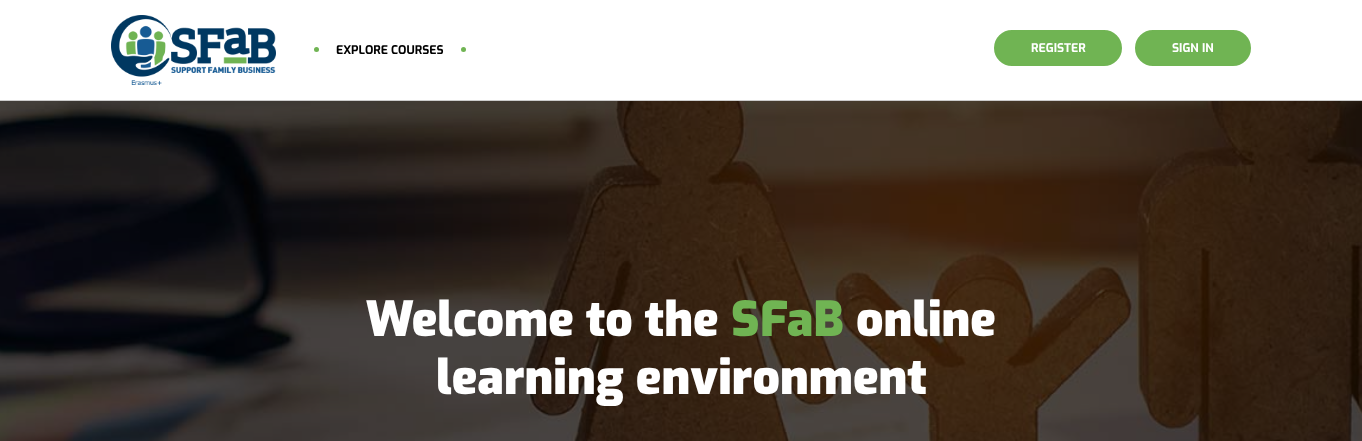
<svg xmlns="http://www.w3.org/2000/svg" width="1362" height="441">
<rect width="100%" height="100%" fill="#fff"/>
<rect y="100" width="1362" height="1" fill="#ccc"/>
<image x="111" y="15" width="165" height="70" href="media/1.png"/>
<circle cx="316.5" cy="49.5" r="2.5" fill="#70b453"/>
<text x="336" y="54" style="font-family:Exo;font-size:12px;font-weight:bold;fill:#000">EXPLORE COURSES</text>
<circle cx="463.5" cy="49.5" r="2.5" fill="#70b453"/>
<rect x="995" y="31" width="126" height="34" rx="17" fill="#70b453" stroke="#70b453" stroke-width="2"/>
<text x="1031" y="52" style="font-family:Exo;font-size:12px;font-weight:bold;fill:#fff">REGISTER</text>
<rect x="1136" y="31" width="114" height="34" rx="17" fill="#70b453" stroke="#70b453" stroke-width="2"/>
<text x="1172" y="52" style="font-family:Exo;font-size:12px;font-weight:bold;fill:#fff">SIGN IN</text>
<image x="0" y="101" width="1362" height="340" href="media/2.png"/>
<text x="366" y="336" style="font-family:Exo;font-size:48px;font-weight:900;fill:#fff">Welcome to the</text>
<text x="731" y="336" style="font-family:Exo;font-size:48px;font-weight:900;fill:#70b453">SFaB</text>
<text x="856" y="336" style="font-family:Exo;font-size:48px;font-weight:900;fill:#fff">online</text>
<text x="436" y="394" style="font-family:Exo;font-size:48px;font-weight:900;fill:#fff">learning environment</text>
</svg>
